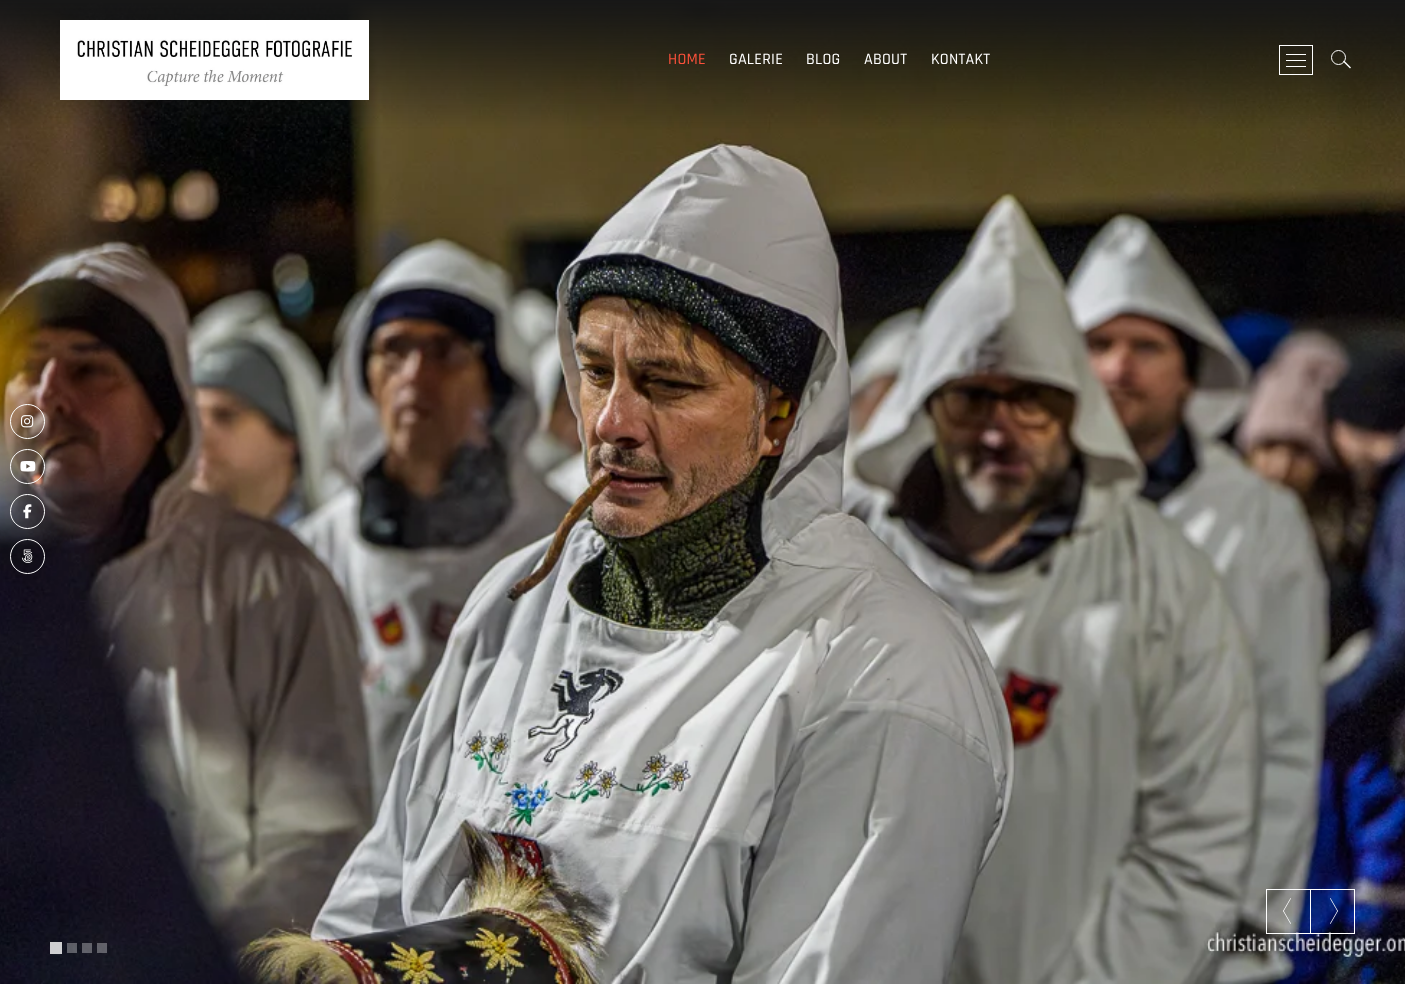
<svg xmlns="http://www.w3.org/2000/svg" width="1405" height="984">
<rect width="100%" height="100%" fill="#fff"/>
<image x="0" y="0" width="1405" height="984" href="media/1.png"/>
<rect x="1266.5" y="889.5" width="44" height="44" fill="none" stroke="#fff"/>
<path d="M1290.5 898l.5 .5l-7.5 13l-.5-.5z" fill="#fff"/>
<rect x="1310.5" y="889.5" width="44" height="44" fill="none" stroke="#fff"/>
<path d="M1283 911l.5-.5l7.5 13l-.5 .5zm47.5 13l-.5-.5l7.5-13l.5 .5z" fill="#fff"/>
<path d="M1338 911l-.5 .5l-7.5-13l.5-.5z" fill="#fff"/>
<rect x="50" y="942" width="12" height="12" fill="#ffffffcc"/>
<rect x="67" y="943" width="10" height="10" fill="#ffffff52"/>
<rect x="82" y="943" width="10" height="10" fill="#ffffff52"/>
<rect x="97" y="943" width="10" height="10" fill="#ffffff52"/>
<image x="60" y="20" width="309" height="80" href="media/2.png"/>
<text x="668" y="64" style="font-family:Rajdhani;font-size:16px;font-weight:500;letter-spacing:0.25px;fill:#fd513b">HOME</text>
<text x="729" y="64" style="font-family:Rajdhani;font-size:16px;font-weight:500;letter-spacing:0.25px;fill:#fff">GALERIE</text>
<text x="806" y="64" style="font-family:Rajdhani;font-size:16px;font-weight:500;letter-spacing:0.25px;fill:#fff">BLOG</text>
<text x="864" y="64" style="font-family:Rajdhani;font-size:16px;font-weight:500;letter-spacing:0.25px;fill:#fff">ABOUT</text>
<text x="931" y="64" style="font-family:Rajdhani;font-size:16px;font-weight:500;letter-spacing:0.25px;fill:#fff">KONTAKT</text>
<rect x="1279.5" y="45.5" width="33" height="29" fill="none" stroke="#fff"/>
<rect x="1286" y="60" width="20" height="1" fill="#fff"/>
<rect x="1286" y="54" width="20" height="1" fill="#fff"/>
<rect x="1286" y="66" width="20" height="1" fill="#fff"/>
<circle cx="1338.5" cy="57.5" r="7" fill="none" stroke="#fff"/>
<path d="M1343 61.5l1-1l7 7l-1 1z" fill="#fff"/>
<rect x="10" y="401" width="35" height="183" rx="17.5" fill="#0000004d" filter="blur(25px)"/>
<circle cx="27.5" cy="421.5" r="17" fill="none" stroke="#fff"/>
<image x="21" y="415" width="13" height="13" href="media/3.png"/>
<circle cx="27.5" cy="466.5" r="17" fill="none" stroke="#fff"/>
<image x="20" y="461" width="16" height="11" href="media/4.png"/>
<circle cx="27.5" cy="511.5" r="17" fill="none" stroke="#fff"/>
<image x="23" y="504" width="9" height="15" href="media/5.png"/>
<circle cx="27.5" cy="556.5" r="17" fill="none" stroke="#fff"/>
<image x="21" y="549" width="12" height="14" href="media/6.png"/>
</svg>
